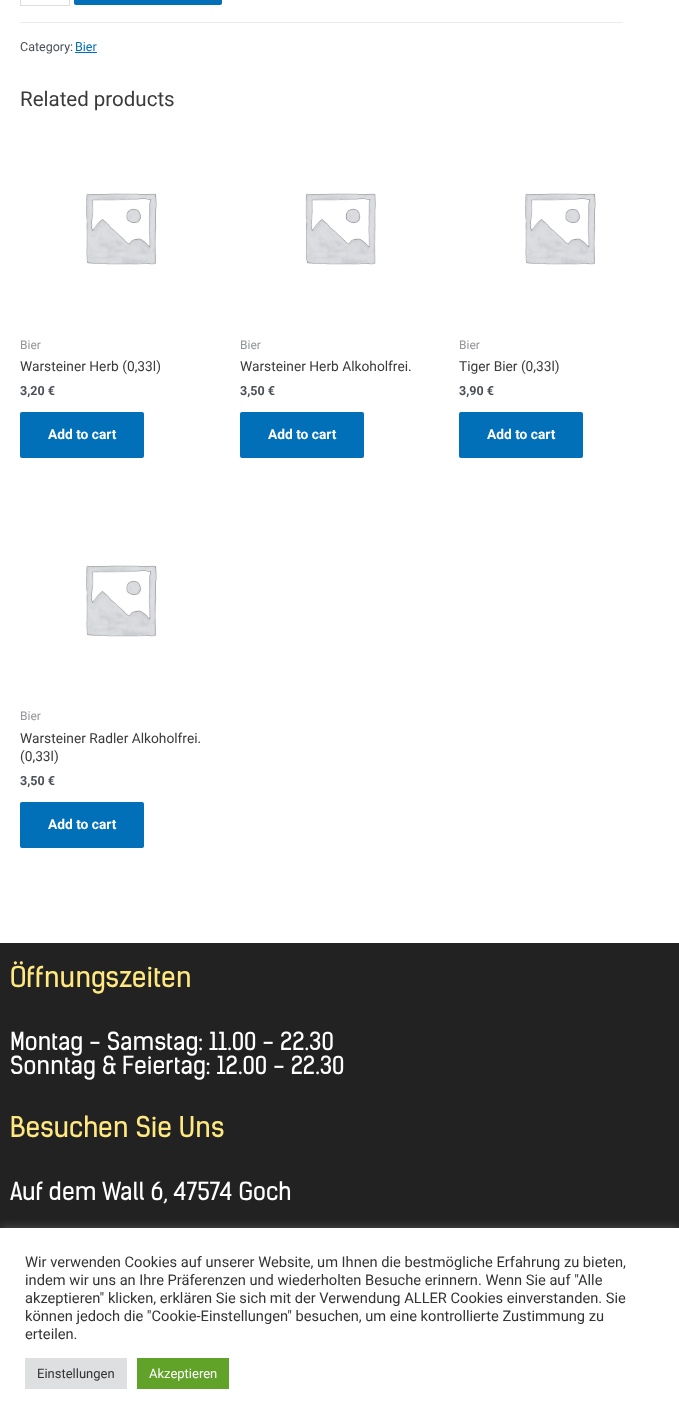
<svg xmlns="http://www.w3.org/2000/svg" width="679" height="1419">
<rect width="100%" height="100%" fill="#fff"/>
<rect x="20" y="22" width="639" height="1" fill="#ebebeb"/>
<image x="622" y="22" width="37" height="1" href="media/1.png"/>
<rect x="20.5" y="-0.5" width="49" height="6" fill="none" stroke="#ddd"/>
<rect x="74" y="-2" width="148" height="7" rx="2" fill="#0170b9"/>
<text x="20" y="51" style="font-family:Roboto;font-size:12.5px;fill:#4b4f58">Category:</text>
<text x="75" y="51" style="font-family:Roboto;font-size:12.5px;fill:#0170b9">Bier</text>
<rect x="75" y="52" width="22" height="1" fill="#0170b9"/>
<text x="20" y="106" style="font-family:Roboto;font-size:20.5px;fill:#3a3a3a">Related products</text>
<image x="86" y="193" width="71" height="72" href="media/2.png"/>
<text x="20" y="349" style="font-family:Roboto;font-size:12px;fill:#93959b">Bier</text>
<text x="20" y="371" style="font-family:Roboto;font-size:13.75px;fill:#3a3a3a">Warsteiner Herb (0,33l)</text>
<text x="20" y="395" style="font-family:Roboto;font-size:12.5px;font-weight:bold;fill:#4b4f58">3,20 €</text>
<rect x="20" y="412" width="124" height="46" rx="2" fill="#0170b9"/>
<text x="48" y="439" style="font-family:Roboto;font-size:13.75px;font-weight:bold;fill:#fff">Add to cart</text>
<image x="305" y="193" width="71" height="72" href="media/3.png"/>
<text x="240" y="349" style="font-family:Roboto;font-size:12px;fill:#93959b">Bier</text>
<text x="240" y="371" style="font-family:Roboto;font-size:13.75px;fill:#3a3a3a">Warsteiner Herb Alkoholfrei.</text>
<text x="240" y="395" style="font-family:Roboto;font-size:12.5px;font-weight:bold;fill:#4b4f58">3,50 €</text>
<rect x="240" y="412" width="124" height="46" rx="2" fill="#0170b9"/>
<text x="268" y="439" style="font-family:Roboto;font-size:13.75px;font-weight:bold;fill:#fff">Add to cart</text>
<image x="525" y="193" width="71" height="72" href="media/2.png"/>
<text x="459" y="349" style="font-family:Roboto;font-size:12px;fill:#93959b">Bier</text>
<text x="459" y="371" style="font-family:Roboto;font-size:13.75px;fill:#3a3a3a">Tiger Bier (0,33l)</text>
<text x="459" y="395" style="font-family:Roboto;font-size:12.5px;font-weight:bold;fill:#4b4f58">3,90 €</text>
<rect x="459" y="412" width="124" height="46" rx="2" fill="#0170b9"/>
<text x="487" y="439" style="font-family:Roboto;font-size:13.75px;font-weight:bold;fill:#fff">Add to cart</text>
<image x="86" y="565" width="71" height="72" href="media/2.png"/>
<text x="20" y="720" style="font-family:Roboto;font-size:12px;fill:#93959b">Bier</text>
<text x="20" y="743" style="font-family:Roboto;font-size:13.75px;fill:#3a3a3a">Warsteiner Radler Alkoholfrei.</text>
<text x="20" y="761" style="font-family:Roboto;font-size:13.75px;fill:#3a3a3a">(0,33l)</text>
<text x="20" y="785" style="font-family:Roboto;font-size:12.5px;font-weight:bold;fill:#4b4f58">3,50 €</text>
<rect x="20" y="802" width="124" height="46" rx="2" fill="#0170b9"/>
<text x="48" y="829" style="font-family:Roboto;font-size:13.75px;font-weight:bold;fill:#fff">Add to cart</text>
<rect y="943" width="679" height="285" fill="#222"/>
<text x="10" y="987" style="font-family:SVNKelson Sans;font-size:27.25px;fill:#ffe880">Öffnungszeiten</text>
<text x="10" y="1050" style="font-family:SVNKelson Sans;font-size:23.75px;fill:#fff">Montag - Samstag: 11.00 - 22.30</text>
<text x="10" y="1074" style="font-family:SVNKelson Sans;font-size:23.75px;fill:#fff">Sonntag &amp; Feiertag: 12.00 - 22.30</text>
<text x="10" y="1137" style="font-family:SVNKelson Sans;font-size:27.25px;fill:#ffe880">Besuchen Sie Uns</text>
<text x="10" y="1200" style="font-family:SVNKelson Sans;font-size:23.75px;fill:#fff">Auf dem Wall 6, 47574 Goch</text>
<rect y="1227" width="679" height="191" fill="#acabab4d" filter="blur(5px)"/>
<rect y="1228" width="679" height="191" fill="#fff"/>
<text x="25" y="1267" style="font-family:Roboto;font-size:14.65px;fill:#333">Wir verwenden Cookies auf unserer Website, um Ihnen die bestmögliche Erfahrung zu bieten,</text>
<text x="25" y="1285" style="font-family:Roboto;font-size:14.65px;fill:#333">indem wir uns an Ihre Präferenzen und wiederholten Besuche erinnern. Wenn Sie auf "Alle</text>
<text x="25" y="1303" style="font-family:Roboto;font-size:14.65px;fill:#333">akzeptieren" klicken, erklären Sie sich mit der Verwendung ALLER Cookies einverstanden. Sie</text>
<text x="25" y="1321" style="font-family:Roboto;font-size:14.65px;fill:#333">können jedoch die "Cookie-Einstellungen" besuchen, um eine kontrollierte Zustimmung zu</text>
<text x="25" y="1339" style="font-family:Roboto;font-size:14.65px;fill:#333">erteilen.</text>
<rect x="25" y="1358" width="102" height="31" fill="#dedfe0"/>
<text x="37" y="1378" style="font-family:Roboto;font-size:13px;fill:#333">Einstellungen</text>
<rect x="137" y="1358" width="92" height="31" fill="#61a229"/>
<text x="149" y="1378" style="font-family:Roboto;font-size:13px;fill:#fff">Akzeptieren</text>
</svg>
